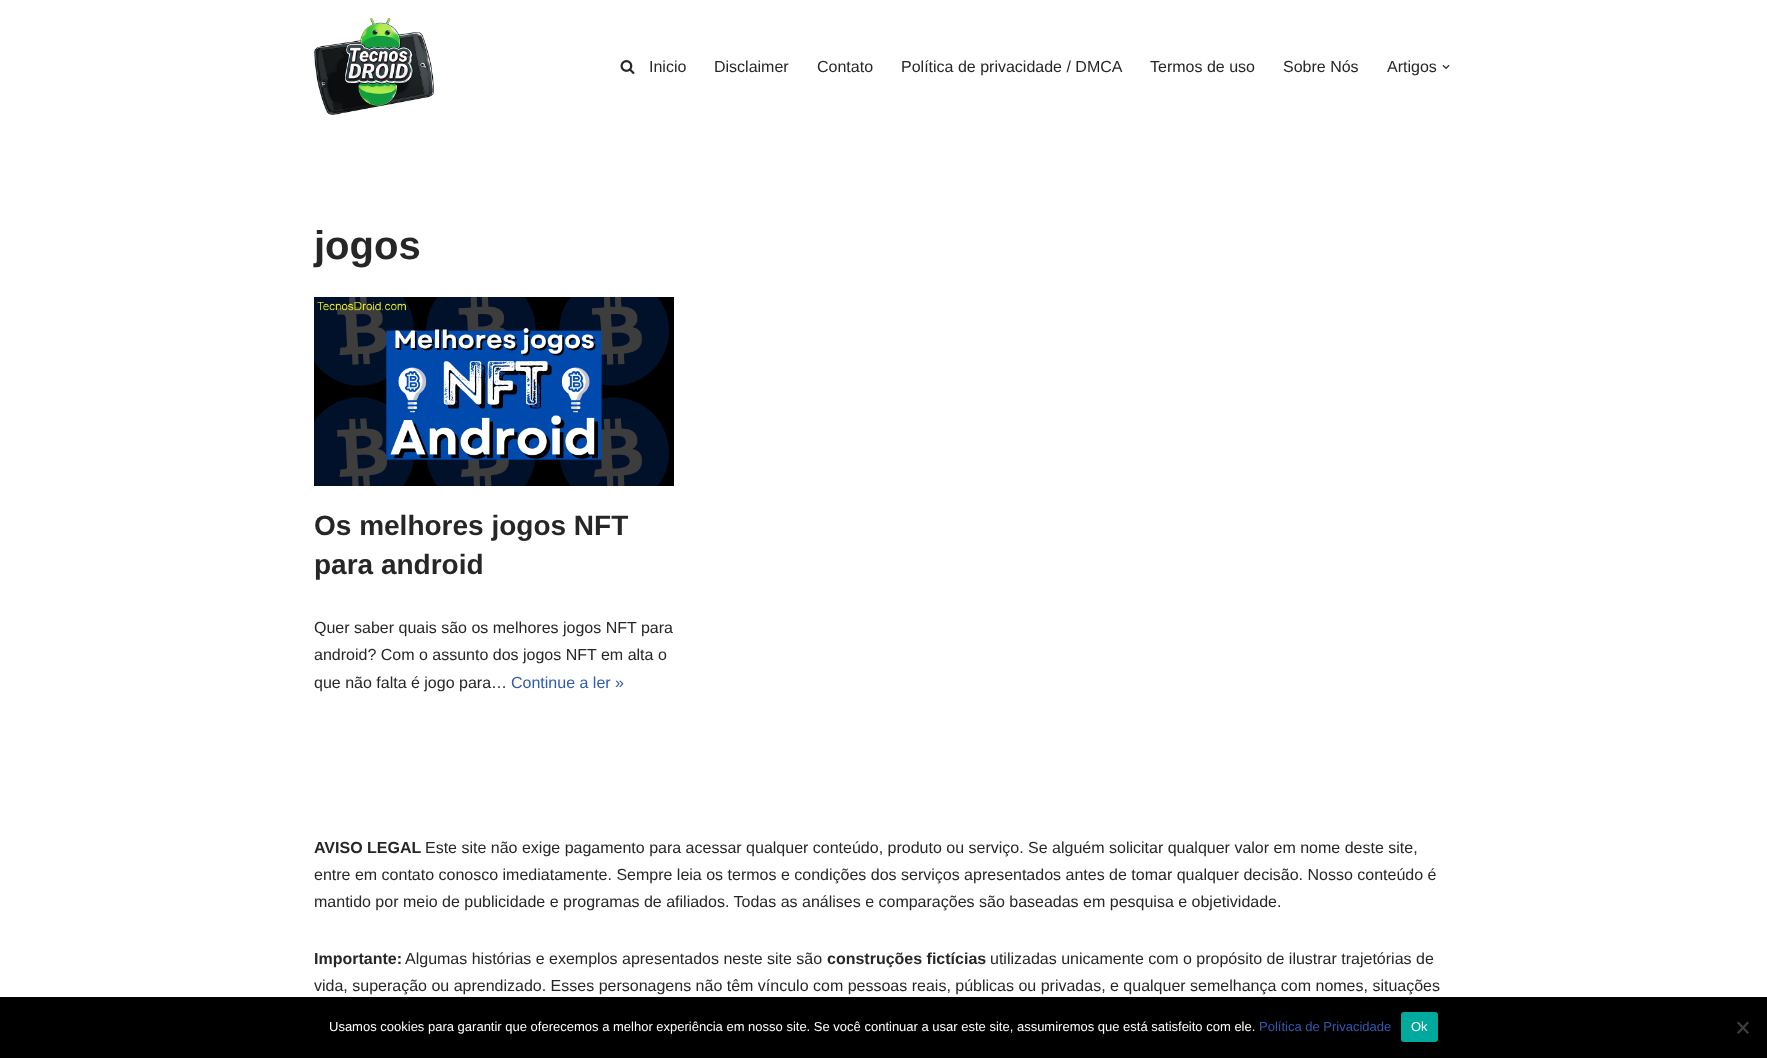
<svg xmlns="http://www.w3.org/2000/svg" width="1767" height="1058">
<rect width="100%" height="100%" fill="#fff"/>
<image x="314" y="18" width="120" height="97" href="media/1.png"/>
<image x="620" y="60" width="15" height="14" href="media/2.png"/>
<text x="649" y="72" style="font-family:Liberation Sans;font-size:16px;fill:#272626">Inicio</text>
<text x="714" y="72" style="font-family:Liberation Sans;font-size:16px;fill:#272626">Disclaimer</text>
<text x="817" y="72" style="font-family:Liberation Sans;font-size:16px;fill:#272626">Contato</text>
<text x="901" y="72" style="font-family:Liberation Sans;font-size:16px;fill:#272626">Política de privacidade / DMCA</text>
<text x="1150" y="72" style="font-family:Liberation Sans;font-size:16px;fill:#272626">Termos de uso</text>
<text x="1283" y="72" style="font-family:Liberation Sans;font-size:16px;fill:#272626">Sobre Nós</text>
<text x="1387" y="72" style="font-family:Liberation Sans;font-size:16px;fill:#272626">Artigos</text>
<image x="1442" y="65" width="8" height="4" href="media/3.png"/>
<text x="314" y="259" style="font-family:Liberation Sans;font-size:40px;font-weight:bold;fill:#272626">jogos</text>
<image x="314" y="297" width="360" height="189" href="media/4.png"/>
<text x="314" y="535" style="font-family:Liberation Sans;font-size:28px;font-weight:bold;fill:#272626">Os melhores jogos NFT</text>
<text x="314" y="574" style="font-family:Liberation Sans;font-size:28px;font-weight:bold;fill:#272626">para android</text>
<text x="314" y="633" style="font-family:Liberation Sans;font-size:16px;fill:#272626">Quer saber quais são os melhores jogos NFT para</text>
<text x="314" y="660" style="font-family:Liberation Sans;font-size:16px;fill:#272626">android? Com o assunto dos jogos NFT em alta o</text>
<text x="314" y="688" style="font-family:Liberation Sans;font-size:16px;fill:#272626">que não falta é jogo para…</text>
<text x="511" y="688" style="font-family:Liberation Sans;font-size:16px;fill:#2f5aae">Continue a ler »</text>
<text x="314" y="853" style="font-family:Liberation Sans;font-size:16px;font-weight:bold;fill:#272626">AVISO LEGAL</text>
<text x="425" y="853" style="font-family:Liberation Sans;font-size:16px;fill:#272626">Este site não exige pagamento para acessar qualquer conteúdo, produto ou serviço. Se alguém solicitar qualquer valor em nome deste site,</text>
<text x="314" y="880" style="font-family:Liberation Sans;font-size:16px;fill:#272626">entre em contato conosco imediatamente. Sempre leia os termos e condições dos serviços apresentados antes de tomar qualquer decisão. Nosso conteúdo é</text>
<text x="314" y="907" style="font-family:Liberation Sans;font-size:16px;fill:#272626">mantido por meio de publicidade e programas de afiliados. Todas as análises e comparações são baseadas em pesquisa e objetividade.</text>
<text x="314" y="964" style="font-family:Liberation Sans;font-size:16px;font-weight:bold;fill:#272626">Importante:</text>
<text x="405" y="964" style="font-family:Liberation Sans;font-size:16px;fill:#272626">Algumas histórias e exemplos apresentados neste site são</text>
<text x="827" y="964" style="font-family:Liberation Sans;font-size:16px;font-weight:bold;fill:#272626">construções fictícias</text>
<text x="990" y="964" style="font-family:Liberation Sans;font-size:16px;fill:#272626">utilizadas unicamente com o propósito de ilustrar trajetórias de</text>
<text x="314" y="991" style="font-family:Liberation Sans;font-size:16px;fill:#272626">vida, superação ou aprendizado. Esses personagens não têm vínculo com pessoas reais, públicas ou privadas, e qualquer semelhança com nomes, situações</text>
<rect y="997" width="1767" height="61" fill="#000"/>
<text x="329" y="1031" style="font-family:Liberation Sans;font-size:13px;fill:#fff">Usamos cookies para garantir que oferecemos a melhor experiência em nosso site. Se você continuar a usar este site, assumiremos que está satisfeito com ele.</text>
<text x="1259" y="1031" style="font-family:Liberation Sans;font-size:13px;fill:#2f5aae">Política de Privacidade</text>
<rect x="1401" y="1012" width="37" height="30" rx="3" fill="#00a99d"/>
<text x="1411" y="1031" style="font-family:Liberation Sans;font-size:13px;fill:#fff">Ok</text>
<path d="M1747.5 1021.5l1.5 1.5l-10.5 11l-1.5-1.5z" fill="#404040"/>
<path d="M1737 1023l1.5-1.5l10.5 11l-1.5 1.5z" fill="#404040"/>
</svg>
